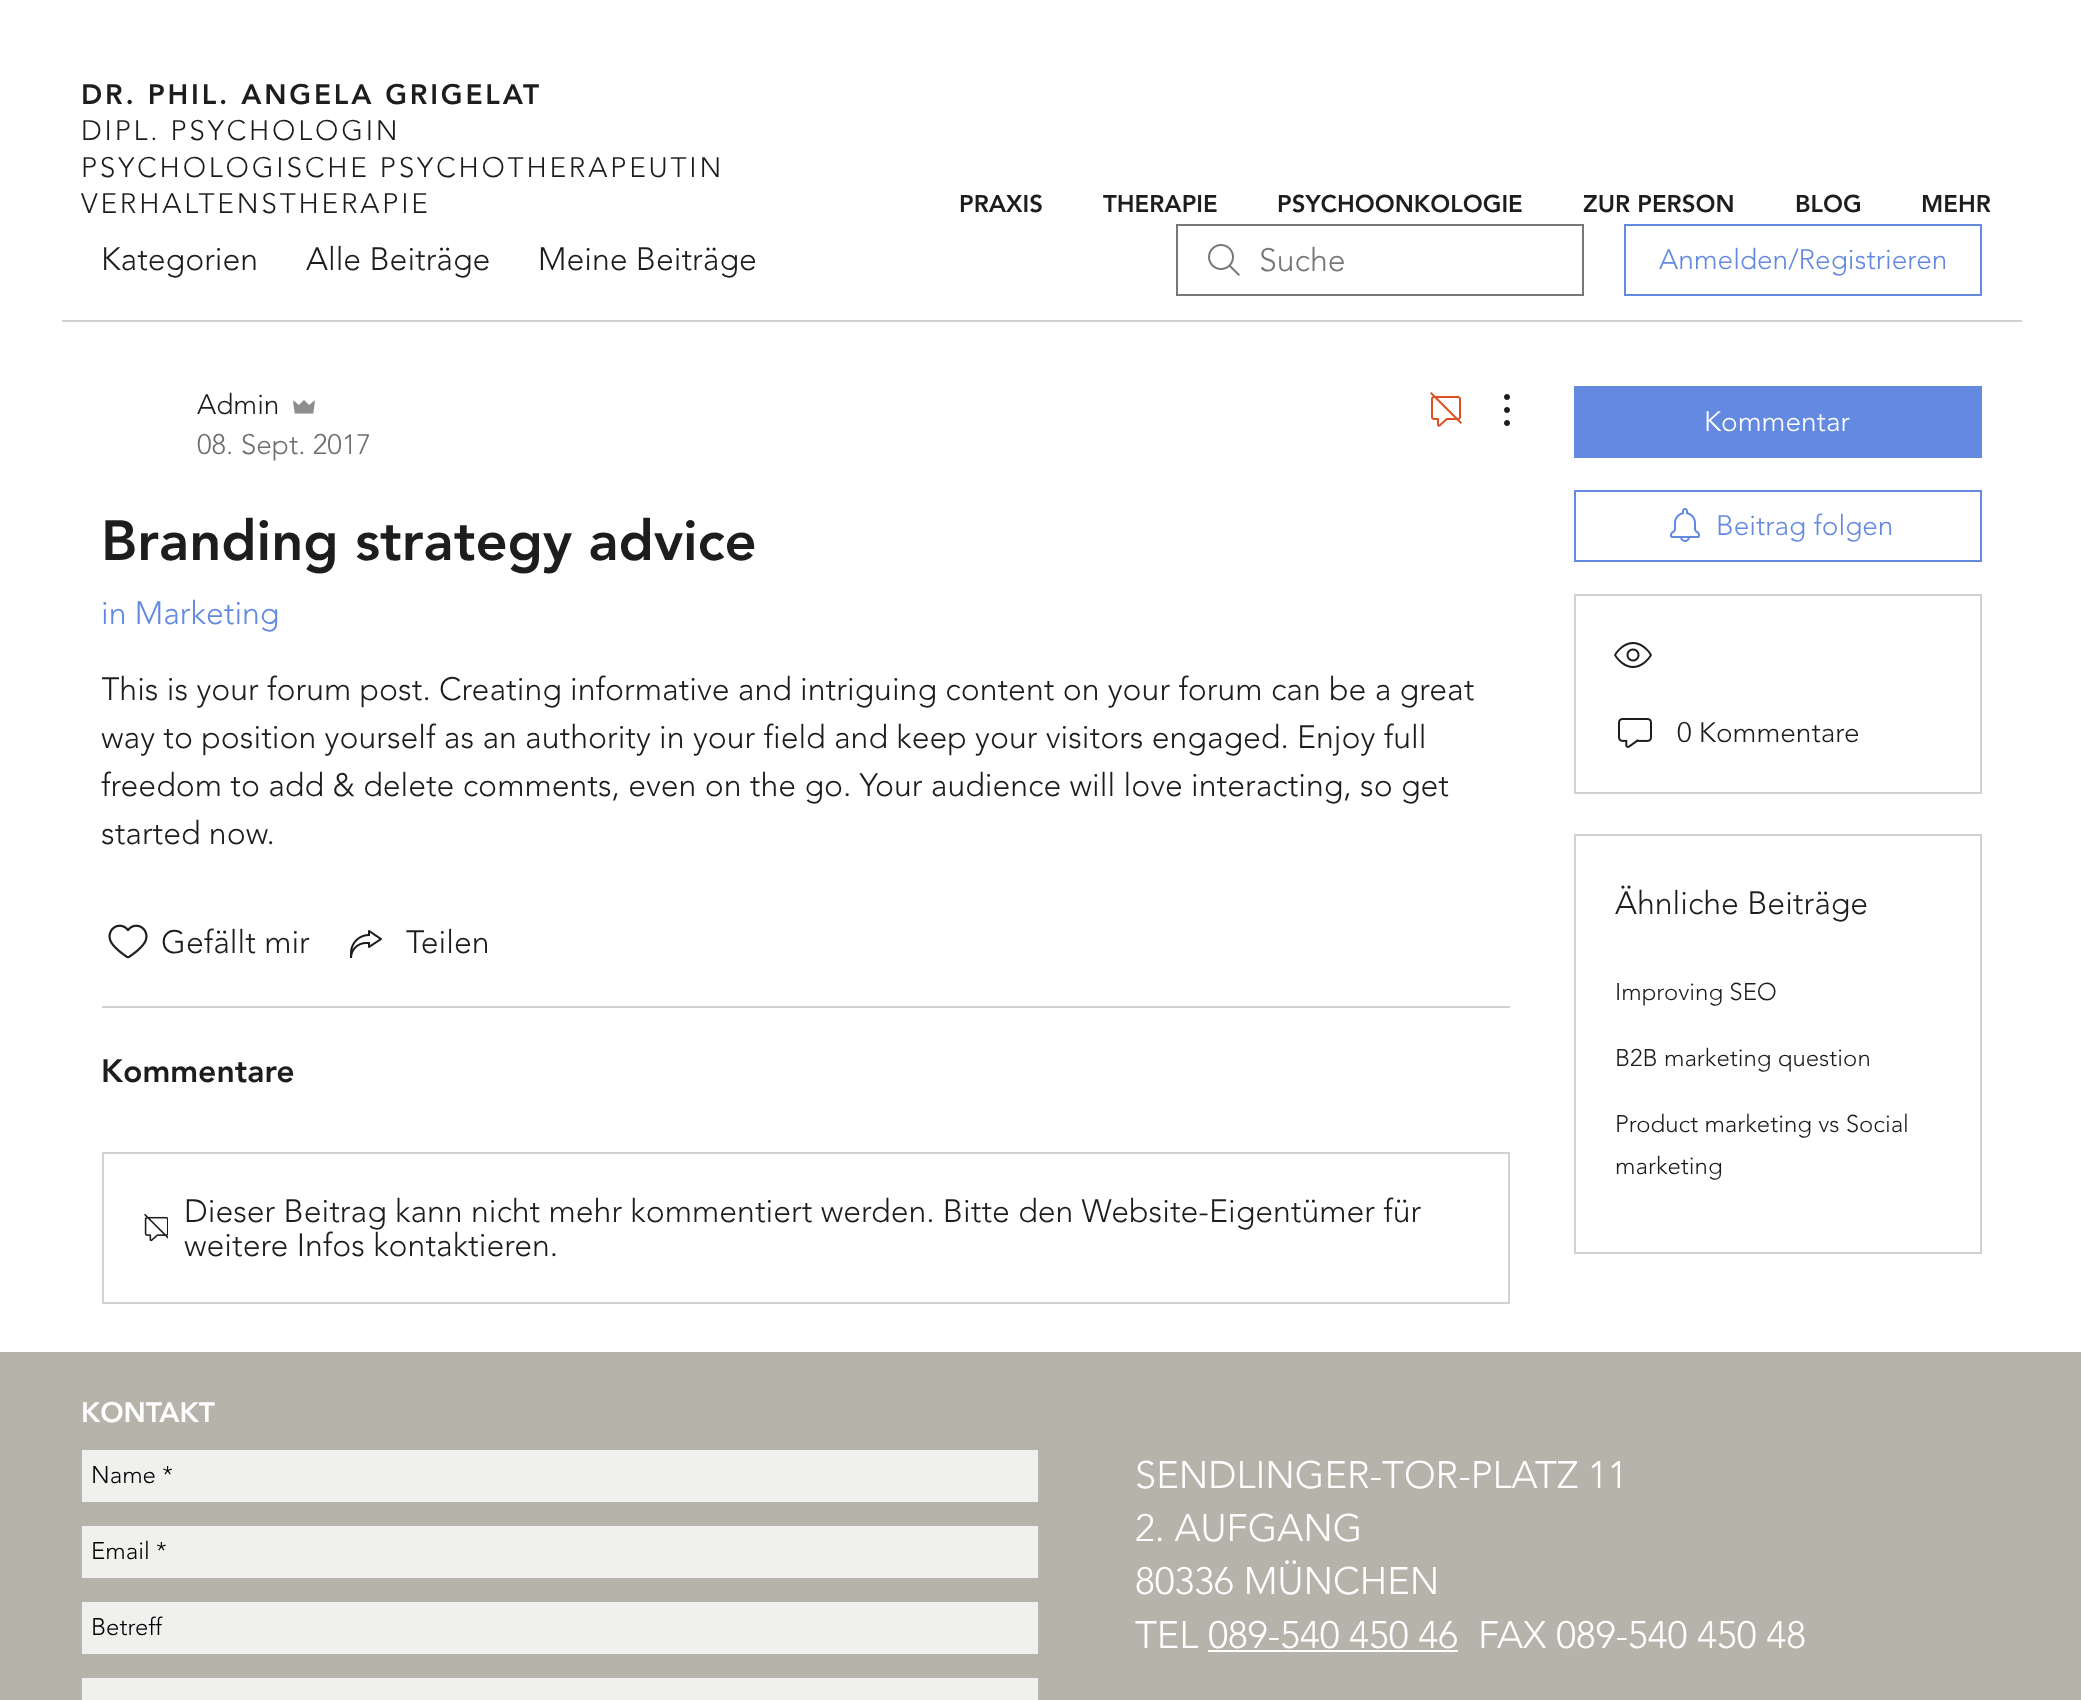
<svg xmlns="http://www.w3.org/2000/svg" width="2081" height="1700">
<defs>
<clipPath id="clip1"><rect x="102" y="666" width="1408" height="192"/></clipPath>
</defs>
<rect width="100%" height="100%" fill="#fff"/>
<text x="81" y="104" style="font-family:'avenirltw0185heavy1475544';font-size:28px;font-weight:900;letter-spacing:2.8px;fill:#1d1d1f">DR. PHIL. ANGELA GRIGELAT</text>
<text x="81" y="140" style="font-family:'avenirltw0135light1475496';font-size:28px;font-weight:300;letter-spacing:2.8px;fill:#1d1d1f">DIPL. PSYCHOLOGIN</text>
<text x="81" y="177" style="font-family:'avenirltw0135light1475496';font-size:28px;font-weight:300;letter-spacing:2.8px;fill:#1d1d1f">PSYCHOLOGISCHE PSYCHOTHERAPEUTIN</text>
<text x="81" y="213" style="font-family:'avenirltw0135light1475496';font-size:28px;font-weight:300;letter-spacing:2.8px;fill:#1d1d1f">VERHALTENSTHERAPIE</text>
<text x="959" y="212" style="font-family:'avenirltw0185heavy1475544';font-size:24px;font-weight:900;fill:#1d1d1f">PRAXIS</text>
<text x="1103" y="212" style="font-family:'avenirltw0185heavy1475544';font-size:24px;font-weight:900;fill:#1d1d1f">THERAPIE</text>
<text x="1277" y="212" style="font-family:'avenirltw0185heavy1475544';font-size:24px;font-weight:900;fill:#1d1d1f">PSYCHOONKOLOGIE</text>
<text x="1583" y="212" style="font-family:'avenirltw0185heavy1475544';font-size:24px;font-weight:900;fill:#1d1d1f">ZUR PERSON</text>
<text x="1795" y="212" style="font-family:'avenirltw0185heavy1475544';font-size:24px;font-weight:900;fill:#1d1d1f">BLOG</text>
<text x="1921" y="212" style="font-family:'avenirltw0185heavy1475544';font-size:24px;font-weight:900;fill:#1d1d1f">MEHR</text>
<rect x="62" y="320" width="1960" height="2" fill="#d2d2d2"/>
<text x="101" y="270" style="font-family:'avenirltw0135light1475496';font-size:32px;font-weight:300;fill:#1d1d1f">Kategorien</text>
<text x="306" y="270" style="font-family:'avenirltw0135light1475496';font-size:32px;font-weight:300;fill:#1d1d1f">Alle Beiträge</text>
<text x="538" y="270" style="font-family:'avenirltw0135light1475496';font-size:32px;font-weight:300;fill:#1d1d1f">Meine Beiträge</text>
<image x="1208" y="244" width="32" height="32" href="media/1.png"/>
<rect x="1177" y="225" width="406" height="70" fill="none" stroke="#777779" stroke-width="2"/>
<text x="1259" y="271" style="font-family:'avenirltw0135light1475496';font-size:32px;font-weight:300;fill:#777779">Suche</text>
<rect x="1625" y="225" width="356" height="70" fill="none" stroke="#6389e1" stroke-width="2"/>
<text x="1659" y="269" style="font-family:'avenirltw0135light1475496';font-size:28px;font-weight:300;fill:#6389e1">Anmelden/Registrieren</text>
<text x="197" y="414" style="font-family:'avenirltw0135light1475496';font-size:28px;font-weight:300;fill:#1d1d1f">Admin</text>
<image x="293" y="400" width="22" height="14" href="media/2.png"/>
<text x="197" y="454" style="font-family:'avenirltw0135light1475496';font-size:28px;font-weight:300;fill:#6e6e70">08. Sept. 2017</text>
<image x="1430" y="392" width="32" height="35" href="media/3.png"/>
<image x="1504" y="394" width="6" height="32" href="media/4.png"/>
<text x="101" y="560" style="font-family:'avenirltw0185heavy1475544';font-size:56px;font-weight:900;fill:#1d1d1f">Branding strategy advice</text>
<text x="101" y="624" style="font-family:'avenirltw0135light1475496';font-size:32px;font-weight:300;fill:#6389e1">in Marketing</text>
<g clip-path="url(#clip1)">
<text x="101" y="700" style="font-family:'avenirltw0135light1475496';font-size:32px;font-weight:300;fill:#1d1d1f">This is your forum post. Creating informative and intriguing content on your forum can be a great</text>
</g>
<text x="101" y="748" style="font-family:'avenirltw0135light1475496';font-size:32px;font-weight:300;fill:#1d1d1f">way to position yourself as an authority in your field and keep your visitors engaged. Enjoy full</text>
<text x="101" y="796" style="font-family:'avenirltw0135light1475496';font-size:32px;font-weight:300;fill:#1d1d1f">freedom to add &amp; delete comments, even on the go. Your audience will love interacting, so get</text>
<text x="101" y="844" style="font-family:'avenirltw0135light1475496';font-size:32px;font-weight:300;fill:#1d1d1f">started now.</text>
<image x="108" y="924" width="40" height="35" href="media/5.png"/>
<text x="161" y="953" style="font-family:'avenirltw0135light1475496';font-size:32px;font-weight:300;fill:#1d1d1f">Gefällt mir</text>
<image x="350" y="930" width="32" height="28" href="media/6.png"/>
<text x="406" y="953" style="font-family:'avenirltw0135light1475496';font-size:32px;font-weight:300;fill:#1d1d1f">Teilen</text>
<rect x="102" y="1006" width="1408" height="2" fill="#d2d2d2"/>
<text x="101" y="1082" style="font-family:'avenirltw0185heavy1475544';font-size:32px;font-weight:900;fill:#1d1d1f">Kommentare</text>
<rect x="103" y="1153" width="1406" height="150" fill="none" stroke="#d2d2d2" stroke-width="2"/>
<image x="144" y="1213" width="24" height="29" href="media/7.png"/>
<text x="184" y="1222" style="font-family:'avenirltw0135light1475496';font-size:32px;font-weight:300;fill:#1d1d1f">Dieser Beitrag kann nicht mehr kommentiert werden. Bitte den Website-Eigentümer für</text>
<text x="184" y="1256" style="font-family:'avenirltw0135light1475496';font-size:32px;font-weight:300;fill:#1d1d1f">weitere Infos kontaktieren.</text>
<rect x="1574" y="386" width="408" height="72" fill="#6389e1"/>
<text x="1704" y="431" style="font-family:'avenirltw0135light1475496';font-size:28px;font-weight:300;fill:#fff">Kommentar</text>
<rect x="1575" y="491" width="406" height="70" fill="none" stroke="#6389e1" stroke-width="2"/>
<image x="1670" y="508" width="30" height="34" href="media/8.png"/>
<text x="1716" y="535" style="font-family:'avenirltw0135light1475496';font-size:28px;font-weight:300;fill:#6389e1">Beitrag folgen</text>
<rect x="1575" y="595" width="406" height="198" fill="none" stroke="#d2d2d2" stroke-width="2"/>
<image x="1614" y="642" width="38" height="26" href="media/9.png"/>
<image x="1618" y="718" width="34" height="30" href="media/10.png"/>
<text x="1677" y="742" style="font-family:'avenirltw0135light1475496';font-size:28px;font-weight:300;fill:#1d1d1f">0 Kommentare</text>
<rect x="1575" y="835" width="406" height="418" fill="none" stroke="#d2d2d2" stroke-width="2"/>
<text x="1615" y="914" style="font-family:'avenirltw0135light1475496';font-size:32px;font-weight:300;fill:#1d1d1f">Ähnliche Beiträge</text>
<text x="1615" y="1000" style="font-family:'avenirltw0135light1475496';font-size:24px;font-weight:300;fill:#1d1d1f">Improving SEO</text>
<text x="1615" y="1066" style="font-family:'avenirltw0135light1475496';font-size:24px;font-weight:300;fill:#1d1d1f">B2B marketing question</text>
<text x="1615" y="1132" style="font-family:'avenirltw0135light1475496';font-size:24px;font-weight:300;fill:#1d1d1f">Product marketing vs Social</text>
<text x="1615" y="1174" style="font-family:'avenirltw0135light1475496';font-size:24px;font-weight:300;fill:#1d1d1f">marketing</text>
<rect y="1352" width="2081" height="348" fill="#b5b3aa"/>
<text x="81" y="1422" style="font-family:'avenirltw0185heavy1475544';font-size:28px;font-weight:900;fill:#fff">KONTAKT</text>
<rect x="82" y="1450" width="956" height="52" fill="#f0f0ee"/>
<text x="91" y="1483" style="font-family:'avenirltw0135light1475496';font-size:24px;font-weight:300;fill:#000">Name *</text>
<rect x="82" y="1526" width="956" height="52" fill="#f0f0ee"/>
<text x="91" y="1559" style="font-family:'avenirltw0135light1475496';font-size:24px;font-weight:300;fill:#000">Email *</text>
<rect x="82" y="1602" width="956" height="52" fill="#f0f0ee"/>
<text x="91" y="1635" style="font-family:'avenirltw0135light1475496';font-size:24px;font-weight:300;fill:#000">Betreff</text>
<rect x="82" y="1678" width="956" height="22" fill="#f0f0ee"/>
<text x="1135" y="1488" style="font-family:'avenirltw0135light1475496';font-size:38px;font-weight:300;fill:#fff">SENDLINGER-TOR-PLATZ 11</text>
<text x="1135" y="1541" style="font-family:'avenirltw0135light1475496';font-size:38px;font-weight:300;fill:#fff">2. AUFGANG</text>
<text x="1135" y="1594" style="font-family:'avenirltw0135light1475496';font-size:38px;font-weight:300;fill:#fff">80336 MÜNCHEN</text>
<text x="1135" y="1648" style="font-family:'avenirltw0135light1475496';font-size:38px;font-weight:300;fill:#fff">TEL 089-540 450 46</text>
<rect x="1208" y="1650" width="250" height="2" fill="#fff"/>
<text x="1478" y="1648" style="font-family:'avenirltw0135light1475496';font-size:38px;font-weight:300;fill:#fff">FAX 089-540 450 48</text>
</svg>
